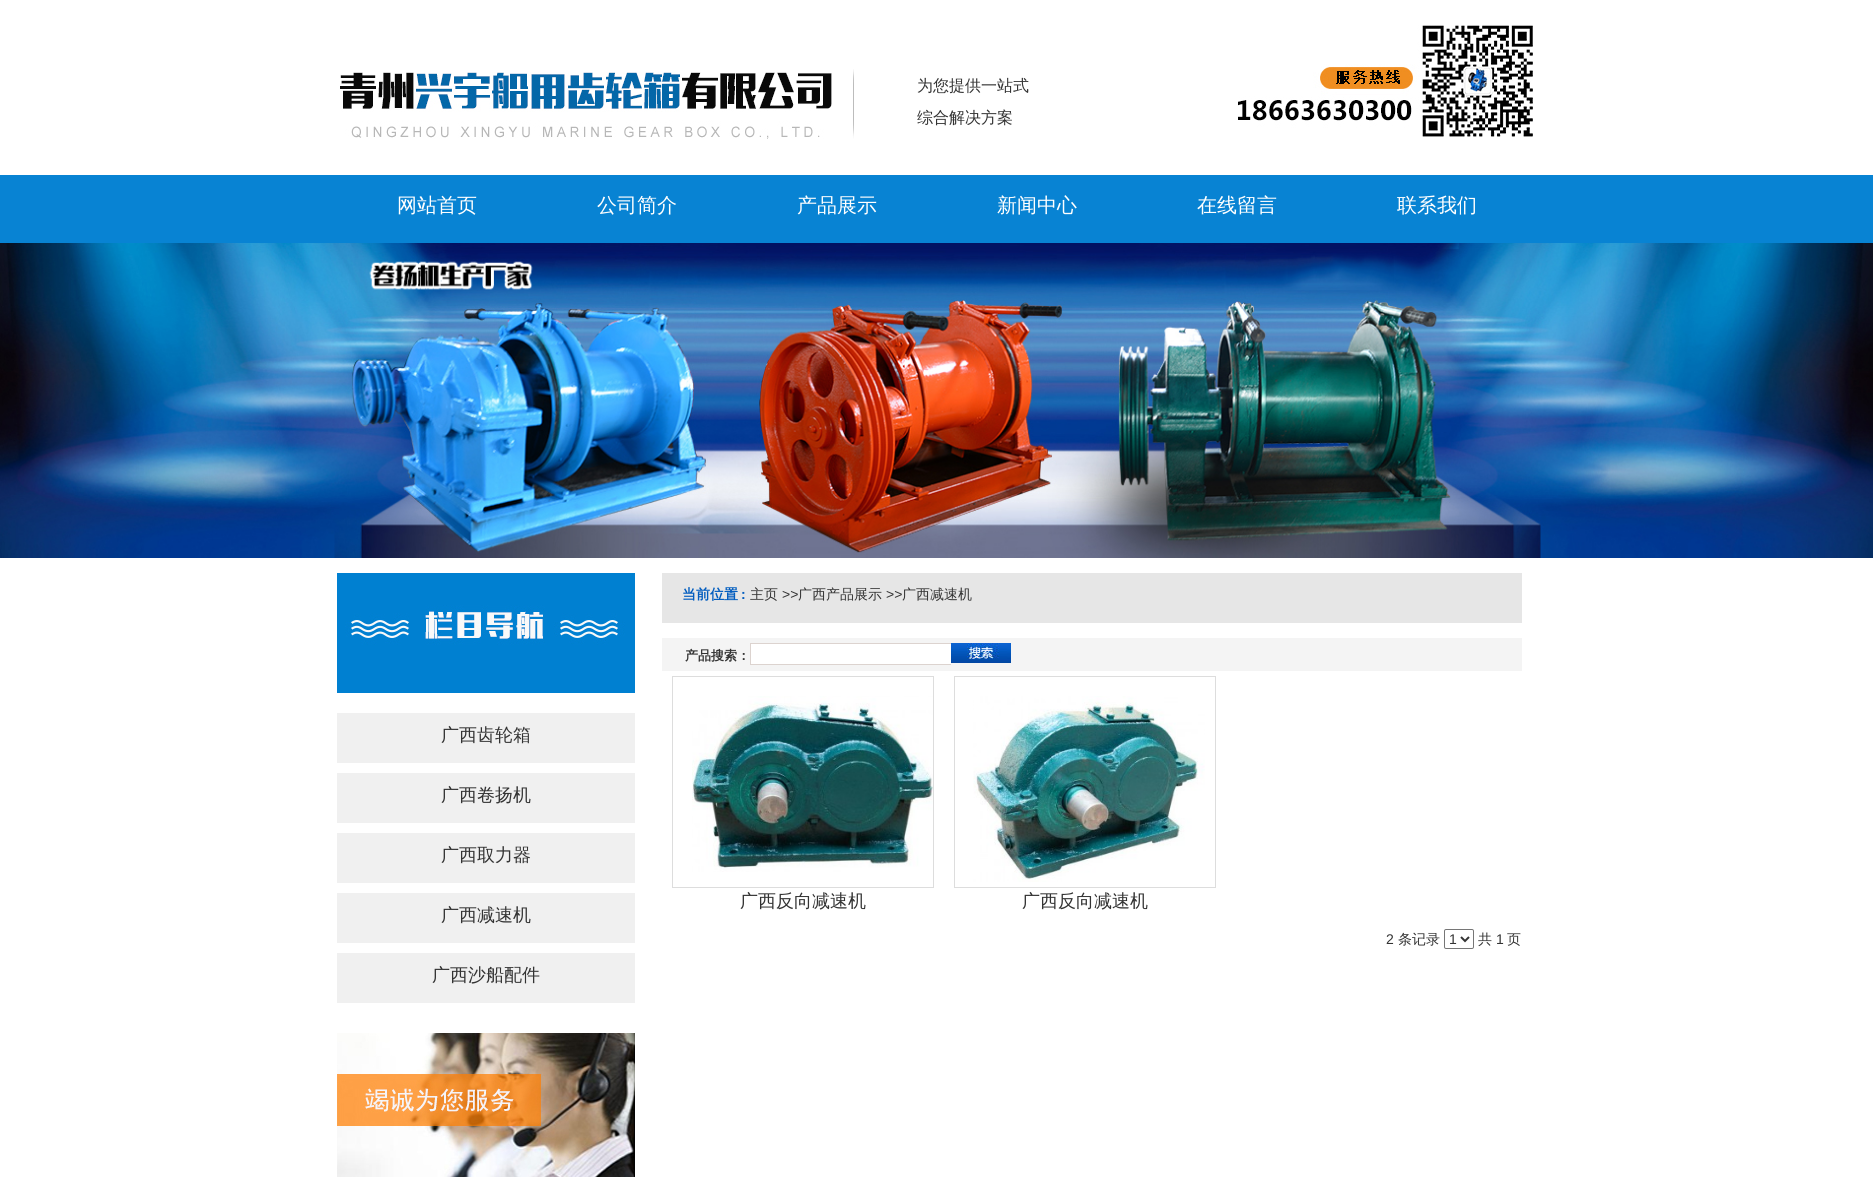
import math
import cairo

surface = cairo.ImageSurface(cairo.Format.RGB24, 1873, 1202)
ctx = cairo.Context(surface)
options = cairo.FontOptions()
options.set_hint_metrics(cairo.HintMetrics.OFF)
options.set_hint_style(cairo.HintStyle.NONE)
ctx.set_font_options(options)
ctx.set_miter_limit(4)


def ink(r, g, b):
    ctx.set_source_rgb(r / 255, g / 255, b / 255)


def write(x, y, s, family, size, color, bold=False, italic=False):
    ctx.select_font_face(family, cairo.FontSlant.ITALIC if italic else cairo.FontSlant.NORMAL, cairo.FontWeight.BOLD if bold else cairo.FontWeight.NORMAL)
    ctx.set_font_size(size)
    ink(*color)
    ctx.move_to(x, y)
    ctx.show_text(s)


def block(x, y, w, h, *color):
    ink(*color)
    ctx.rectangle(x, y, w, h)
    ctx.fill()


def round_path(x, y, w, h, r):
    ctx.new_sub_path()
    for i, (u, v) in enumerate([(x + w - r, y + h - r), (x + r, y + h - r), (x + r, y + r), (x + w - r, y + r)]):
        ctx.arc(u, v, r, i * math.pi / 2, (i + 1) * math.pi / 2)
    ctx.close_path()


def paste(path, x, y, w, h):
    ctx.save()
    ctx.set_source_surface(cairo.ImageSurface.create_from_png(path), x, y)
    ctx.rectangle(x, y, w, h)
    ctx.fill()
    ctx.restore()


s1 = dict(family="WenQuanYi Zen Hei Medium", size=16, color=(51, 51, 51))
s2 = dict(family="WenQuanYi Zen Hei Medium", size=20, color=(255, 255, 255))
s3 = dict(family="WenQuanYi Zen Hei Medium", size=18, color=(51, 51, 51))
s4 = dict(family="WenQuanYi Zen Hei", size=14, color=(2, 93, 191), bold=True)
s5 = dict(family="Liberation Sans", size=14, color=(2, 93, 191), bold=True)
s6 = dict(family="WenQuanYi Zen Hei Medium", size=14, color=(51, 51, 51))
s7 = dict(family="Liberation Sans", size=14, color=(51, 51, 51))
s8 = dict(family="WenQuanYi Zen Hei", size=13, color=(51, 51, 51), bold=True)

ink(255, 255, 255)
ctx.paint()
paste("pic1.png", 340, 69, 514, 70)
write(917, 91, "为您提供一站式", **s1)
write(917, 123, "综合解决方案", **s1)
paste("pic2.png", 1238, 25, 295, 112)
block(0, 175, 1873, 68, 8, 131, 211)
write(397, 212, "网站首页", **s2)
write(597, 212, "公司简介", **s2)
write(797, 212, "产品展示", **s2)
write(997, 212, "新闻中心", **s2)
write(1197, 212, "在线留言", **s2)
write(1397, 212, "联系我们", **s2)
paste("pic3.png", 0, 243, 1873, 315)
paste("pic4.png", 337, 573, 298, 120)
block(337, 713, 298, 50, 240, 240, 240)
write(441, 741, "广西齿轮箱", **s3)
block(337, 773, 298, 50, 240, 240, 240)
write(441, 801, "广西卷扬机", **s3)
block(337, 833, 298, 50, 240, 240, 240)
write(441, 861, "广西取力器", **s3)
block(337, 893, 298, 50, 240, 240, 240)
write(441, 921, "广西减速机", **s3)
block(337, 953, 298, 50, 240, 240, 240)
write(432, 981, "广西沙船配件", **s3)
paste("pic5.png", 337, 1033, 298, 144)
block(662, 573, 860, 50, 230, 230, 230)
write(682, 599, "当前位置", **s4)
write(741, 599, ":", **s5)
write(750, 599, "主页", **s6)
write(782, 599, ">>", **s7)
write(798, 599, "广西产品展示", **s6)
write(886, 599, ">>", **s7)
write(902, 599, "广西减速机", **s6)
block(662, 638, 860, 33, 244, 244, 244)
write(685, 660, "产品搜索：", **s8)
block(751, 644, 200, 20, 255, 255, 255)
block(750, 643, 201, 1, 220, 211, 207)
block(750, 664, 201, 1, 220, 211, 207)
block(750, 643, 1, 22, 220, 211, 207)
paste("pic6.png", 951, 643, 60, 20)
ctx.rectangle(672.5, 676.5, 261, 211)
ink(221, 221, 221)
ctx.set_line_width(1)
ctx.stroke()
paste("pic7.png", 692, 696, 241, 176)
write(740, 907, "广西反向减速机", **s3)
ctx.rectangle(954.5, 676.5, 261, 211)
ink(221, 221, 221)
ctx.stroke()
paste("pic8.png", 973, 696, 232, 186)
write(1022, 907, "广西反向减速机", **s3)
write(1386, 944, "2", **s7)
write(1398, 944, "条记录", **s6)
round_path(1444.5, 929.5, 29, 19, 1.5)
ink(118, 118, 118)
ctx.stroke()
ctx.new_path()
ctx.move_to(1461, 937)
ctx.line_to(1465, 941)
ctx.line_to(1469, 937)
ink(51, 51, 51)
ctx.set_line_width(2)
ctx.stroke()
write(1449, 944, "1", **s7)
write(1478, 944, "共", **s6)
write(1496, 944, "1", **s7)
write(1507, 944, "页", **s6)
surface.write_to_png("screenshot.png")
